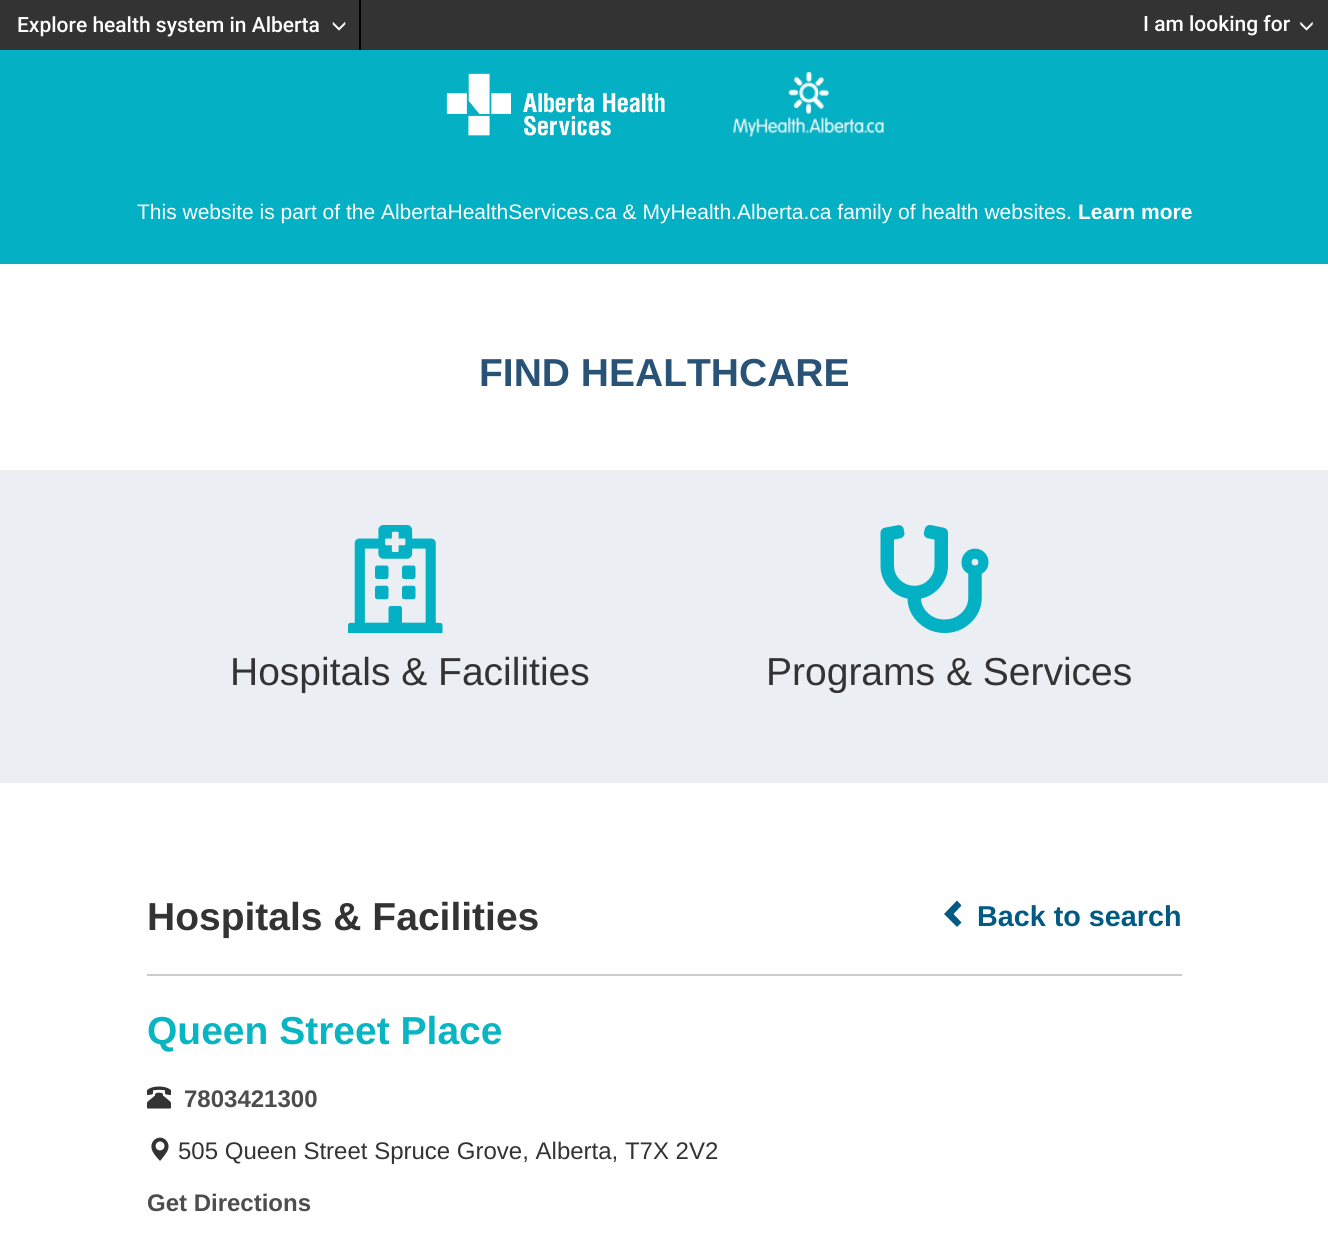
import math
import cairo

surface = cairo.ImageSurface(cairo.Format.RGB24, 1328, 1248)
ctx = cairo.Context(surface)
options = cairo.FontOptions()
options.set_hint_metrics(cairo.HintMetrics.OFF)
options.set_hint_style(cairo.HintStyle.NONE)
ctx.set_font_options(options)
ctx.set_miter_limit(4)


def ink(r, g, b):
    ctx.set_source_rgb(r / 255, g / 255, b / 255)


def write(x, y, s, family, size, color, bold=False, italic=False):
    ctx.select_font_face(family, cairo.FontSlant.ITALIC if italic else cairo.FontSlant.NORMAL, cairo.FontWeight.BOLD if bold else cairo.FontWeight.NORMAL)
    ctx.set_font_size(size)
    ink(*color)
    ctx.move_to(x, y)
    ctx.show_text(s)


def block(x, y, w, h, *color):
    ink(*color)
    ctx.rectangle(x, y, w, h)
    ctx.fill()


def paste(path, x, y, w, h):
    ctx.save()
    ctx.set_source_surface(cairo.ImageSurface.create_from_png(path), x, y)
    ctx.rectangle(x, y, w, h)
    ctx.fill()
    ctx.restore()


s1 = dict(family="Roboto Medium", size=21, color=(255, 255, 255))
s2 = dict(family="Liberation Sans", size=21, color=(255, 255, 255))
s3 = dict(family="Liberation Sans", size=21, color=(255, 255, 255), bold=True)
s4 = dict(family="Liberation Sans", size=39, color=(41, 83, 118), bold=True)
s5 = dict(family="Liberation Sans", size=39, color=(51, 51, 51))
s6 = dict(family="Liberation Sans", size=39, color=(51, 51, 51), bold=True)
s7 = dict(family="Liberation Sans", size=28.75, color=(0, 90, 131), bold=True)
s8 = dict(family="Liberation Sans", size=39, color=(7, 181, 195), bold=True)
s9 = dict(family="Liberation Sans", size=24, color=(77, 77, 77), bold=True)
s10 = dict(family="Liberation Sans", size=24, color=(51, 51, 51))

ink(255, 255, 255)
ctx.paint()
block(0, 0, 1328, 50, 51, 51, 51)
block(359, 0, 2, 50, 0, 0, 0)
write(17, 32, "Explore health system in Alberta", **s1)
paste("pic1.png", 332, 22, 14, 9)
write(1143, 31, "I am looking for", **s1)
paste("pic2.png", 1300, 22, 13, 9)
block(0, 50, 1328, 214, 4, 176, 196)
paste("pic3.png", 446, 73, 219, 63)
paste("pic4.png", 733, 72, 151, 65)
write(137, 219, "This website is part of the AlbertaHealthServices.ca & MyHealth.Alberta.ca family of health websites.", **s2)
write(1078, 219, "Learn more", **s3)
write(479, 386, "FIND HEALTHCARE", **s4)
block(0, 470, 1328, 313, 235, 239, 243)
paste("pic5.png", 348, 525, 95, 108)
write(230, 685, "Hospitals & Facilities", **s5)
paste("pic6.png", 880, 525, 109, 108)
write(766, 685, "Programs & Services", **s5)
write(147, 930, "Hospitals & Facilities", **s6)
ink(0, 90, 131)
ctx.new_path()
ctx.move_to(961.5, 905.5)
ctx.line_to(953.5, 914)
ctx.line_to(961.5, 922.5)
ctx.line_to(957, 927)
ctx.line_to(944, 914)
ctx.line_to(957, 900.5)
ctx.close_path()
ctx.fill()
write(977, 926, "Back to search", **s7)
block(147, 974, 1035, 2, 204, 204, 204)
write(147, 1044, "Queen Street Place", **s8)
paste("pic7.png", 147, 1086, 24, 23)
write(184, 1107, "7803421300", **s9)
paste("pic8.png", 151, 1137, 18, 24)
write(178, 1159, "505 Queen Street Spruce Grove, Alberta, T7X 2V2", **s10)
write(147, 1211, "Get Directions", **s9)
surface.write_to_png("screenshot.png")
